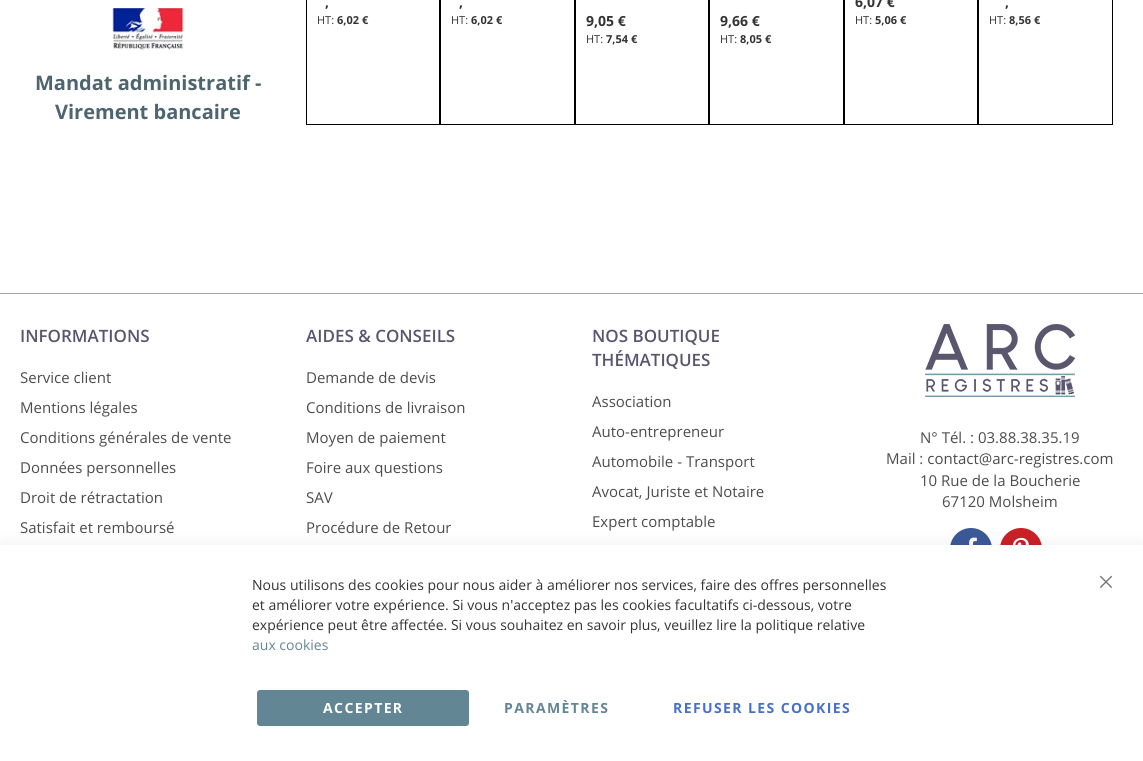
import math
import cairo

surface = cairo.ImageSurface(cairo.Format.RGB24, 1143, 761)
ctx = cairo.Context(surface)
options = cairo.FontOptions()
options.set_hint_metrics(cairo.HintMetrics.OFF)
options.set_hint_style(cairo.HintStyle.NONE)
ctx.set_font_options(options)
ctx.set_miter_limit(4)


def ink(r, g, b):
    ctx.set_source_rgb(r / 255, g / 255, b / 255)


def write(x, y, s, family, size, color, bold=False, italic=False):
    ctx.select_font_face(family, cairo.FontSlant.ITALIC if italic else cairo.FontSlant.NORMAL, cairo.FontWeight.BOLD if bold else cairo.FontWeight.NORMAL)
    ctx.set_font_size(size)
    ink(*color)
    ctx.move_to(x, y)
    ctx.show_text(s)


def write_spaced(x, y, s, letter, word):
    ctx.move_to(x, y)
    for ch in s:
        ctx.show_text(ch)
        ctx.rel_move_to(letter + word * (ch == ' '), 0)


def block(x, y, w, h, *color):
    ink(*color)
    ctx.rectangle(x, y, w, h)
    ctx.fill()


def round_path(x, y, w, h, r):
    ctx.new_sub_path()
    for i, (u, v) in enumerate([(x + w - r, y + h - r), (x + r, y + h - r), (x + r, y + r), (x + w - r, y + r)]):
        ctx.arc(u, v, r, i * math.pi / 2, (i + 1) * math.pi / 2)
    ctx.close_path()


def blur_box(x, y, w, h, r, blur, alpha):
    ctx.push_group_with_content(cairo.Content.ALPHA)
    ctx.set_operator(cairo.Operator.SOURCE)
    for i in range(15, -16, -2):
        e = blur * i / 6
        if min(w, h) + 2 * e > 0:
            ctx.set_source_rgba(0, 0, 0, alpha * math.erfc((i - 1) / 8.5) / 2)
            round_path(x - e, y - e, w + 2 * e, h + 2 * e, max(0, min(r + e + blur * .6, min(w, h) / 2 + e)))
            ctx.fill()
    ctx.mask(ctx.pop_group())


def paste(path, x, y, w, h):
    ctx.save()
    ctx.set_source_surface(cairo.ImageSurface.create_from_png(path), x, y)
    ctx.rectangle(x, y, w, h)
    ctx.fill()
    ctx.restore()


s1 = dict(family="Open Sans", size=14, color=(51, 51, 51), bold=True)
s2 = dict(family="Open Sans", size=11, color=(51, 51, 51))
s3 = dict(family="Open Sans", size=11, color=(51, 51, 51), bold=True)
s4 = dict(family="Open Sans", size=20, color=(78, 101, 111), bold=True)
s5 = dict(family="Open Sans SemiBold", size=17, color=(90, 85, 110))
s6 = dict(family="Open Sans", size=15, color=(76, 76, 76))
s7 = dict(family="Open Sans", size=14, color=(51, 51, 51))
s8 = dict(family="Open Sans", size=14, color=(99, 134, 148))

ink(255, 255, 255)
ctx.paint()
ctx.rectangle(306.5, -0.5, 133, 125)
ink(0, 0, 0)
ctx.set_line_width(1)
ctx.stroke()
write(325, 7, ",", **s1)
write(317, 24, "HT:", **s2)
write(337, 24, "6,02 €", **s3)
ctx.rectangle(440.5, -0.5, 134, 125)
ink(0, 0, 0)
ctx.stroke()
write(459, 7, ",", **s1)
write(451, 24, "HT:", **s2)
write(471, 24, "6,02 €", **s3)
ctx.rectangle(575.5, -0.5, 133, 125)
ink(0, 0, 0)
ctx.stroke()
write(586, 26, "9,05 €", **s1)
write(586, 43, "HT:", **s2)
write(606, 43, "7,54 €", **s3)
ctx.rectangle(709.5, -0.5, 134, 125)
ink(0, 0, 0)
ctx.stroke()
write(720, 26, "9,66 €", **s1)
write(720, 43, "HT:", **s2)
write(740, 43, "8,05 €", **s3)
ctx.rectangle(844.5, -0.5, 133, 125)
ink(0, 0, 0)
ctx.stroke()
write(855, 7, "6,07 €", **s1)
write(855, 24, "HT:", **s2)
write(875, 24, "5,06 €", **s3)
ctx.rectangle(978.5, -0.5, 134, 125)
ink(0, 0, 0)
ctx.stroke()
write(1005, 7, ",", **s1)
write(989, 24, "HT:", **s2)
write(1009, 24, "8,56 €", **s3)
paste("pic1.png", 112, 8, 72, 42)
write(35, 90, "Mandat administratif -", **s4)
write(55, 119, "Virement bancaire", **s4)
block(0, 293, 1143, 1, 167, 167, 167)
write(20, 342, "INFORMATIONS", **s5)
write(20, 383, "Service client", **s6)
write(20, 413, "Mentions légales", **s6)
write(20, 443, "Conditions générales de vente", **s6)
write(20, 473, "Données personnelles", **s6)
write(20, 503, "Droit de rétractation", **s6)
write(20, 533, "Satisfait et remboursé", **s6)
write(306, 342, "AIDES & CONSEILS", **s5)
write(306, 383, "Demande de devis", **s6)
write(306, 413, "Conditions de livraison", **s6)
write(306, 443, "Moyen de paiement", **s6)
write(306, 473, "Foire aux questions", **s6)
write(306, 503, "SAV", **s6)
write(306, 533, "Procédure de Retour", **s6)
write(592, 342, "NOS BOUTIQUE", **s5)
write(592, 366, "THÉMATIQUES", **s5)
write(592, 407, "Association", **s6)
write(592, 437, "Auto-entrepreneur", **s6)
write(592, 467, "Automobile - Transport", **s6)
write(592, 497, "Avocat, Juriste et Notaire", **s6)
write(592, 527, "Expert comptable", **s6)
paste("pic2.png", 925, 324, 150, 73)
write(920, 443, "N° Tél. : 03.88.38.35.19", **s6)
write(886, 464, "Mail : contact@arc-registres.com", **s6)
write(920, 486, "10 Rue de la Boucherie", **s6)
write(942, 507, "67120 Molsheim", **s6)
ink(59, 89, 152)
ctx.new_path()
ctx.arc(971, 549, 21, 0, 2 * math.pi)
ctx.fill()
paste("pic3.png", 969, 537, 8, 8)
ink(203, 32, 39)
ctx.arc(1021, 549, 21, 0, 2 * math.pi)
ctx.fill()
paste("pic4.png", 1013, 537, 16, 8)
ink(0, 0, 0)
blur_box(0, 543, 1143, 216, 0, 9, 0.06)
block(0, 545, 1143, 216, 255, 255, 255)
write(252, 590, "Nous utilisons des cookies pour nous aider à améliorer nos services, faire des offres personnelles", **s7)
write(252, 610, "et améliorer votre expérience. Si vous n'acceptez pas les cookies facultatifs ci-dessous, votre", **s7)
write(252, 630, "expérience peut être affectée. Si vous souhaitez en savoir plus, veuillez lire la politique relative", **s7)
write(252, 650, "aux cookies", **s8)
round_path(257, 690, 212, 36, 3)
ctx.fill()
ctx.select_font_face("Open Sans", cairo.FontSlant.NORMAL, cairo.FontWeight.BOLD)
ink(255, 255, 255)
write_spaced(323, 713, "ACCEPTER", 1.4, 0)
ink(99, 134, 148)
write_spaced(504, 713, "PARAMÈTRES", 1.4, 0)
ink(70, 112, 201)
write_spaced(673, 713, "REFUSER LES COOKIES", 1.4, 0)
paste("pic5.png", 1099, 575, 14, 13)
surface.write_to_png("screenshot.png")
